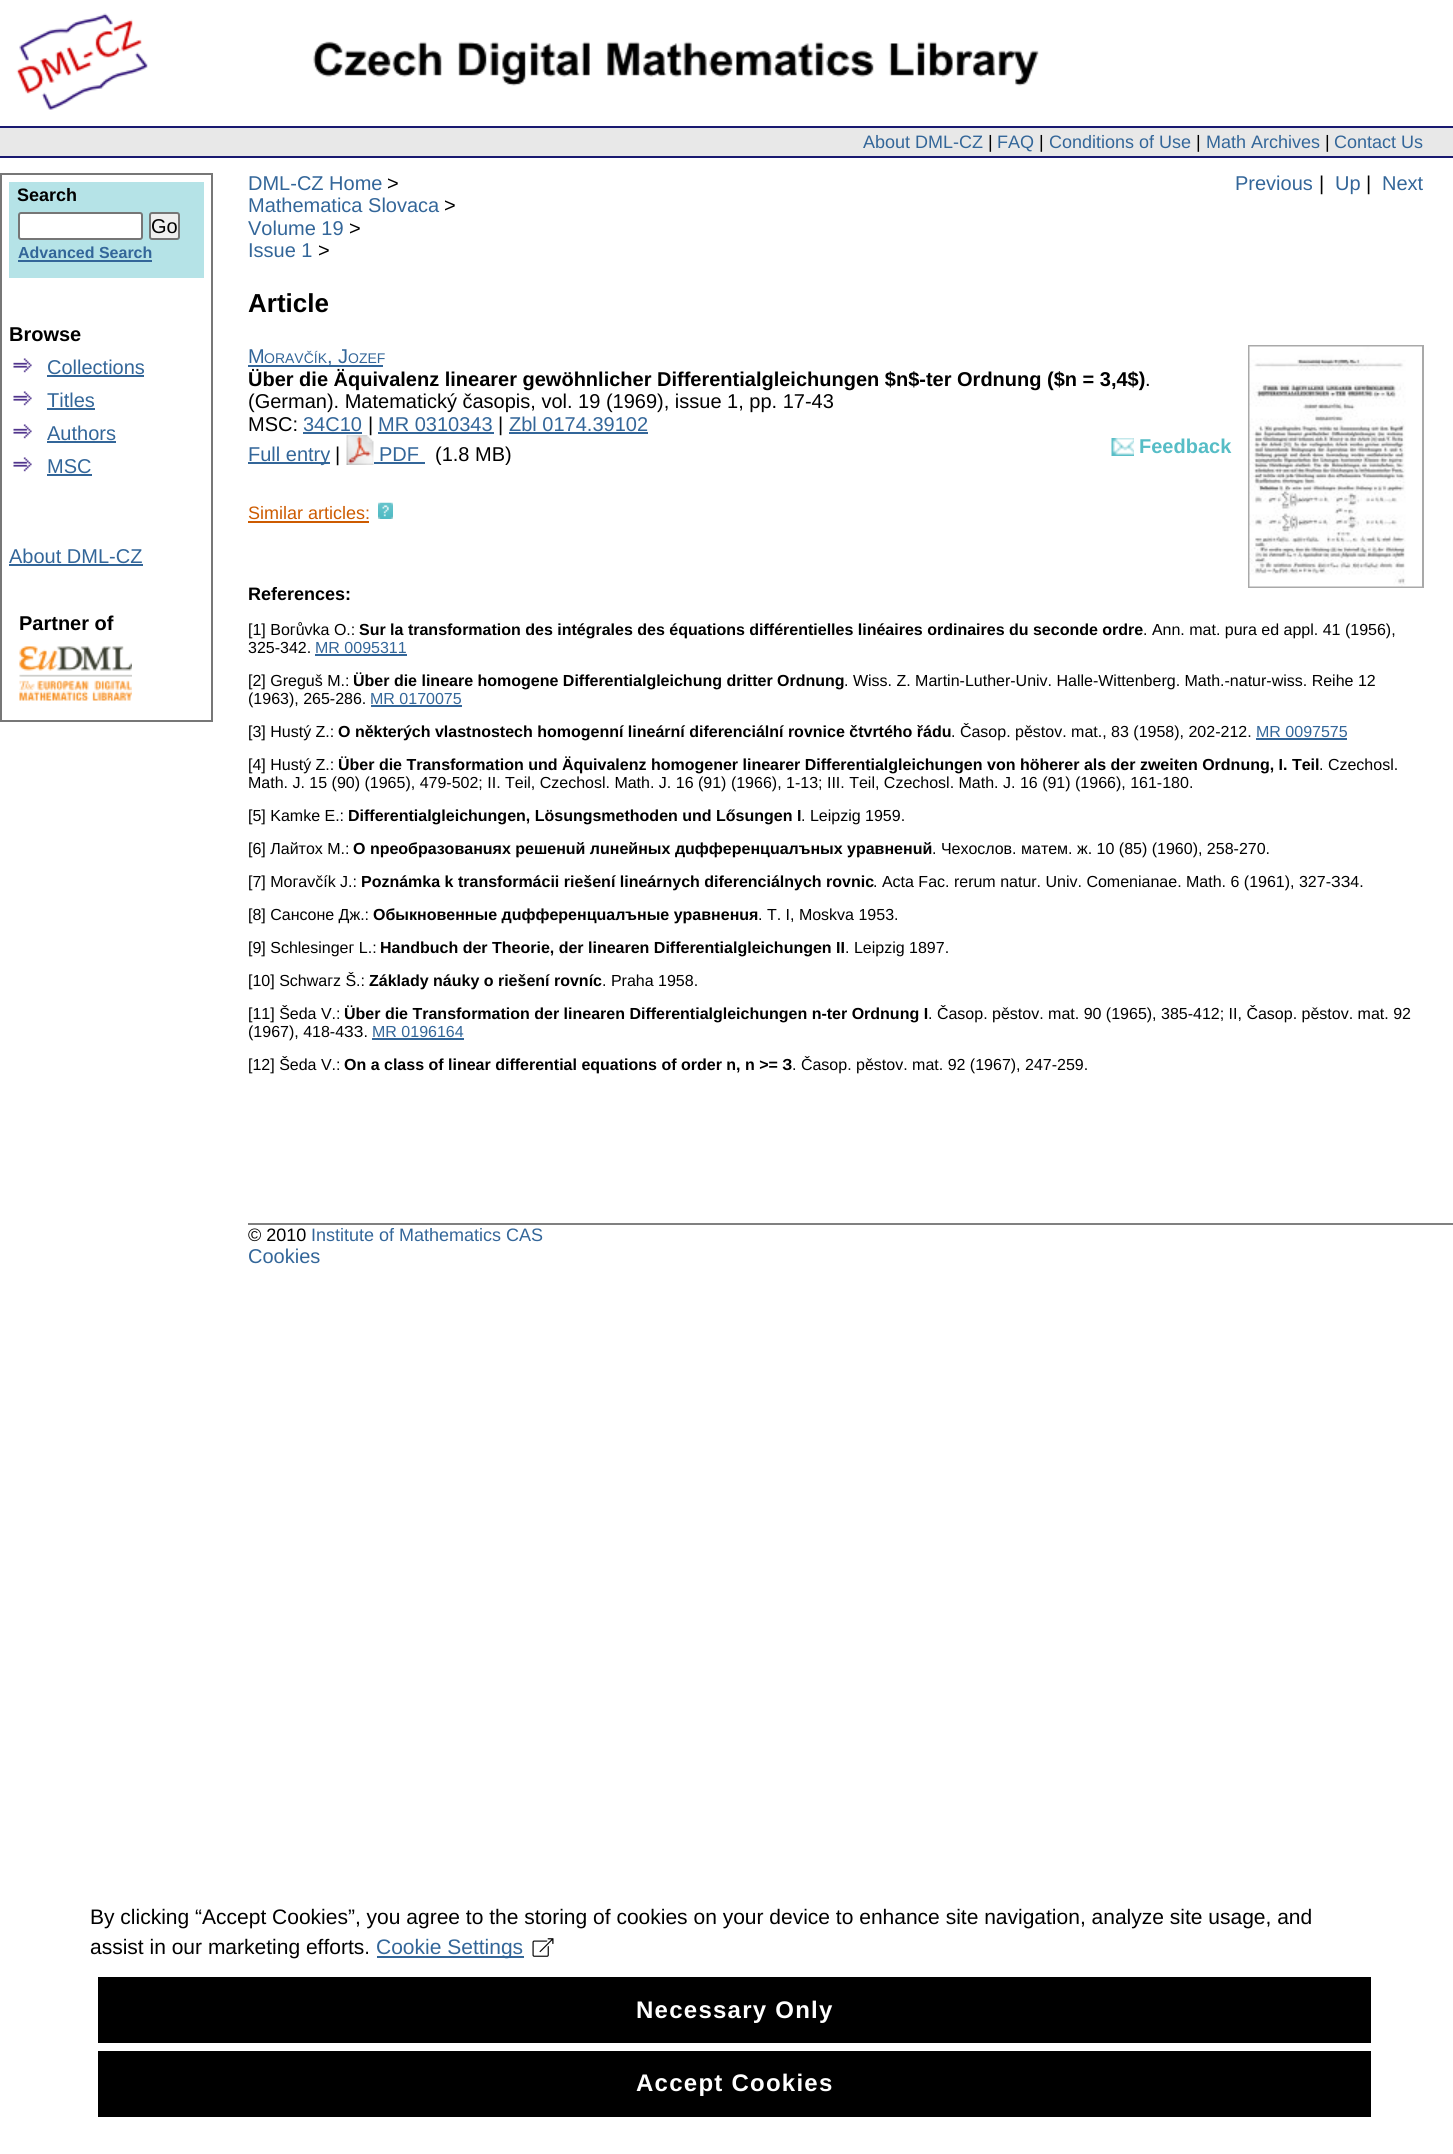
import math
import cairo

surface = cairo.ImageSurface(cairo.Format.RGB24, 1453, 2154)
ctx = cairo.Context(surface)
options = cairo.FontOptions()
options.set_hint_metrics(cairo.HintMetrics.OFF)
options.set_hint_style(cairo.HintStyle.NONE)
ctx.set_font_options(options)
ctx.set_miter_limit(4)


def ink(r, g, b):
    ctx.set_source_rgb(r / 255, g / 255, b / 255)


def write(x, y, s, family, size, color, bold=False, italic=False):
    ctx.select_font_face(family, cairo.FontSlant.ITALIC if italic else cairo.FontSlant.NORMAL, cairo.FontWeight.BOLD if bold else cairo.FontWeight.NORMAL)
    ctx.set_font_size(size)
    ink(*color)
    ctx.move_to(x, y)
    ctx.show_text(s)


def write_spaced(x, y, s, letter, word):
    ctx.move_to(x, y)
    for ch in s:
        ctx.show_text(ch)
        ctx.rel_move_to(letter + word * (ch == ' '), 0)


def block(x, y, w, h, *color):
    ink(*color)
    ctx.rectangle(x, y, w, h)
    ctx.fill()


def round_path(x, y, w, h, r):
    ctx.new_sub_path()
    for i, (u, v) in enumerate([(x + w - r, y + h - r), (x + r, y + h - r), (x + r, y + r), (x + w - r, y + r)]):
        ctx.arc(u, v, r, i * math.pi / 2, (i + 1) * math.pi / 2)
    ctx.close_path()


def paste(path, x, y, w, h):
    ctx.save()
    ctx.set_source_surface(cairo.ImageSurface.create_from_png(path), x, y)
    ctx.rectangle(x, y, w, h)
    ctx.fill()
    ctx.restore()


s1 = dict(family="Liberation Sans", size=18, color=(0, 0, 0), bold=True)
s2 = dict(family="Liberation Sans", size=20, color=(0, 0, 0))
s3 = dict(family="Liberation Sans", size=16, color=(51, 102, 153), bold=True)
s4 = dict(family="Liberation Sans", size=20, color=(0, 0, 0), bold=True)
s5 = dict(family="Liberation Sans", size=20, color=(51, 102, 153))
s6 = dict(family="Liberation Sans", size=18, color=(51, 102, 153))
s7 = dict(family="Liberation Sans", size=18, color=(0, 0, 0))
s8 = dict(family="Liberation Sans", size=26, color=(0, 0, 0), bold=True)
s9 = dict(family="Liberation Sans", size=14, color=(51, 102, 153))
s10 = dict(family="Liberation Sans", size=20, color=(86, 189, 198), bold=True)
s11 = dict(family="Liberation Sans", size=18, color=(205, 91, 0))
s12 = dict(family="Liberation Sans", size=16, color=(0, 0, 0))
s13 = dict(family="Liberation Sans", size=16, color=(0, 0, 0), bold=True)
s14 = dict(family="Liberation Sans", size=16, color=(51, 102, 153))
s15 = dict(family="Liberation Sans", size=21, color=(0, 0, 0))
s16 = dict(family="Liberation Sans", size=21, color=(51, 102, 153))

ink(255, 255, 255)
ctx.paint()
ctx.rectangle(1, 174, 211, 547)
ink(119, 119, 119)
ctx.stroke()
block(9, 182, 195, 96, 181, 227, 231)
write(17, 201, "Search", **s1)
ink(255, 255, 255)
round_path(19, 213, 123, 26, 2)
ctx.fill_preserve()
ink(118, 118, 118)
ctx.stroke()
ink(239, 239, 239)
round_path(150, 213, 29, 26, 2)
ctx.fill_preserve()
ink(118, 118, 118)
ctx.stroke()
write(151, 233, "Go", **s2)
write(18, 258, "Advanced Search", **s3)
block(18, 260, 134, 2, 51, 102, 153)
write(9, 341, "Browse", **s4)
paste("pic1.png", 13, 358, 19, 15)
write(47, 374, "Collections", **s5)
block(47, 375, 97, 2, 51, 102, 153)
paste("pic1.png", 13, 391, 19, 15)
write(47, 407, "Titles", **s5)
block(47, 408, 48, 2, 51, 102, 153)
paste("pic1.png", 13, 424, 19, 15)
write(47, 440, "Authors", **s5)
block(47, 441, 69, 2, 51, 102, 153)
paste("pic1.png", 13, 457, 19, 15)
write(47, 473, "MSC", **s5)
block(47, 474, 45, 2, 51, 102, 153)
write(9, 563, "About DML-CZ", **s5)
block(9, 564, 134, 2, 51, 102, 153)
write(19, 630, "Partner of", **s4)
paste("pic2.png", 19, 646, 113, 55)
paste("pic3.png", 16, 13, 132, 97)
paste("pic4.png", 313, 41, 726, 45)
block(0, 128, 1453, 28, 232, 232, 232)
block(0, 126, 1453, 2, 25, 25, 112)
block(0, 156, 1453, 2, 25, 25, 112)
write(863, 148, "About DML-CZ", **s6)
write(988, 148, "|", **s7)
write(997, 148, "FAQ", **s6)
write(1039, 148, "|", **s7)
write(1049, 148, "Conditions of Use", **s6)
write(1196, 148, "|", **s7)
write(1206, 148, "Math Archives", **s6)
write(1325, 148, "|", **s7)
write(1334, 148, "Contact Us", **s6)
write(248, 190, "DML-CZ Home", **s5)
write(387, 190, ">", **s2)
write(248, 212, "Mathematica Slovaca", **s5)
write(444, 212, ">", **s2)
write(248, 235, "Volume 19", **s5)
write(349, 235, ">", **s2)
write(248, 257, "Issue 1", **s5)
write(318, 257, ">", **s2)
write(1235, 190, "Previous", **s5)
write(1319, 190, "|", **s2)
write(1335, 190, "Up", **s5)
write(1366, 190, "|", **s2)
write(1382, 190, "Next", **s5)
write(248, 312, "Article", **s8)
write(248, 363, "M", **s5)
write(264, 363, "ORAVČÍK", **s9)
block(248, 365, 135, 2, 51, 102, 153)
write(327, 363, ", J", **s5)
write(348, 363, "OZEF", **s9)
write(248, 386, "Über die Äquivalenz linearer gewöhnlicher Differentialgleichungen $n$-ter Ordnung ($n = 3,4$)", **s4)
write(1145, 386, ".", **s2)
write(248, 408, "(German). Matematický časopis, vol. 19 (1969), issue 1, pp. 17-43", **s2)
ctx.rectangle(1249, 346, 174, 241)
ink(169, 169, 169)
ctx.stroke()
paste("pic5.png", 1249, 346, 173, 241)
write(248, 431, "MSC:", **s2)
write(303, 431, "34C10", **s5)
block(303, 432, 59, 2, 51, 102, 153)
write(368, 431, "|", **s2)
write(378, 431, "MR 0310343", **s5)
block(378, 432, 116, 2, 51, 102, 153)
write(498, 431, "|", **s2)
write(509, 431, "Zbl 0174.39102", **s5)
block(509, 432, 139, 2, 51, 102, 153)
block(248, 462, 82, 2, 51, 102, 153)
write(248, 461, "Full entry", **s5)
write(335, 461, "|", **s2)
paste("pic6.png", 346, 435, 28, 30)
write(379, 461, "PDF", **s5)
ctx.save()
ctx.rectangle(248, 435, 993, 30)
ctx.clip()
write(435, 461, "(1.8 MB)", **s2)
ctx.restore()
block(374, 462, 51, 2, 51, 102, 153)
paste("pic7.png", 1111, 438, 23, 18)
write(1139, 453, "Feedback", **s10)
write(248, 519, "Similar articles:", **s11)
block(248, 521, 121, 2, 205, 91, 0)
paste("pic8.png", 378, 502, 15, 17)
write(248, 600, "References:", **s1)
write(248, 635, "[1] Boгůvka O.:", **s12)
write(359, 635, "Sur la transformation des intégrales des équations différentielles linéaires ordinaires du seconde ordre", **s13)
write(1143, 635, ". Ann. mat. pura ed appl. 41 (1956),", **s12)
write(248, 653, "325-342.", **s12)
write(315, 653, "MR 0095311", **s14)
block(315, 654, 92, 2, 51, 102, 153)
write(248, 686, "[2] Greguš M.:", **s12)
write(353, 686, "Über die lineare homogene Differentialgleichung dritter Ordnung", **s13)
write(844, 686, ". Wiss. Z. Martin-Luther-Univ. Halle-Wittenberg. Math.-natur-wiss. Reihe 12", **s12)
write(248, 704, "(1963), 265-286.", **s12)
write(370, 704, "MR 0170075", **s14)
block(371, 705, 91, 2, 51, 102, 153)
write(248, 737, "[3] Hustý Z.:", **s12)
write(338, 737, "O některých vlastnostech homogenní lineární diferenciální rovnice čtvrtého řádu", **s13)
write(951, 737, ". Časop. pěstov. mat., 83 (1958), 202-212.", **s12)
write(1256, 737, "MR 0097575", **s14)
block(1256, 738, 91, 2, 51, 102, 153)
write(248, 770, "[4] Hustý Z.:", **s12)
write(338, 770, "Über die Transformation und Äquivalenz homogener linearer Differentialgleichungen von höherer als der zweiten Ordnung, I. Teil", **s13)
write(1319, 770, ". Czechosl.", **s12)
write(248, 788, "Math. J. 15 (90) (1965), 479-502; II. Teil, Czechosl. Math. J. 16 (91) (1966), 1-13; III. Teil, Czechosl. Math. J. 16 (91) (1966), 161-180.", **s12)
write(248, 821, "[5] Kamke E.:", **s12)
write(348, 821, "Differentialgleichungen, Lösungsmethoden und Lősungen I", **s13)
write(801, 821, ". Leipzig 1959.", **s12)
write(248, 854, "[6] Лaйтox M.:", **s12)
write(353, 854, "O npeoбpaзoвaнuяx peшeнuй лuнeйныx дuффepeнцuaлъныx ypaвнeнuй", **s13)
write(932, 854, ". Чexocлoв. мaтeм. ж. 10 (85) (1960), 258-270.", **s12)
write(248, 887, "[7] Moгavčík J.:", **s12)
write(361, 887, "Poznámka k transformácii riešení lineárnych diferenciálnych rovnic", **s13)
write(873, 887, ". Acta Fac. rerum natur. Univ. Comenianae. Math. 6 (1961), 327-ЗЗ4.", **s12)
write(248, 920, "[8] Caнcoнe Дж.:", **s12)
write(373, 920, "Oбыкнoвeнныe дuффepeнцuaлъныe ypaвнeнuя", **s13)
write(758, 920, ". T. I, Moskva 1953.", **s12)
write(248, 953, "[9] Schlesingeг L.:", **s12)
write(380, 953, "Handbuch der Theorie, der linearen Differentialgleichungen II", **s13)
write(845, 953, ". Leipzig 1897.", **s12)
write(248, 986, "[10] Schwaгz Š.:", **s12)
write(369, 986, "Základy náuky o riešení rovníc", **s13)
write(602, 986, ". Praha 1958.", **s12)
write(248, 1019, "[11] Šeda V.:", **s12)
write(344, 1019, "Über die Transformation der linearen Differentialgleichungen n-ter Ordnung I", **s13)
write(928, 1019, ". Časop. pěstov. mat. 90 (1965), 385-412; II, Časop. pěstov. mat. 92", **s12)
write(248, 1037, "(1967), 418-4ЗЗ.", **s12)
write(372, 1037, "MR 0196164", **s14)
block(372, 1038, 92, 2, 51, 102, 153)
write(248, 1070, "[12] Šeda V.:", **s12)
write(344, 1070, "On a class of linear differential equations of order n, n >= З", **s13)
write(792, 1070, ". Časop. pěstov. mat. 92 (1967), 247-259.", **s12)
block(248, 1223, 1205, 2, 128, 128, 128)
write(248, 1241, "© 2010", **s7)
write(311, 1241, "Institute of Mathematics CAS", **s6)
write(248, 1263, "Cookies", **s5)
write(90, 1924, "By clicking “Accept Cookies”, you agree to the storing of cookies on your device to enhance site navigation, analyze site usage, and", **s15)
write(90, 1954, "assist in our marketing efforts.", **s15)
block(377, 1956, 147, 2, 51, 102, 153)
write(376, 1954, "Cookie Settings", **s16)
paste("pic9.png", 532, 1938, 22, 19)
block(98, 1977, 1273, 66, 0, 0, 0)
ctx.select_font_face("Liberation Sans", cairo.FontSlant.NORMAL, cairo.FontWeight.BOLD)
ctx.set_font_size(24)
ink(255, 255, 255)
write_spaced(636, 2018, "Necessary Only", 1.25, 0)
block(98, 2051, 1273, 66, 0, 0, 0)
ink(255, 255, 255)
write_spaced(636, 2091, "Accept Cookies", 1.25, 0)
surface.write_to_png("screenshot.png")
